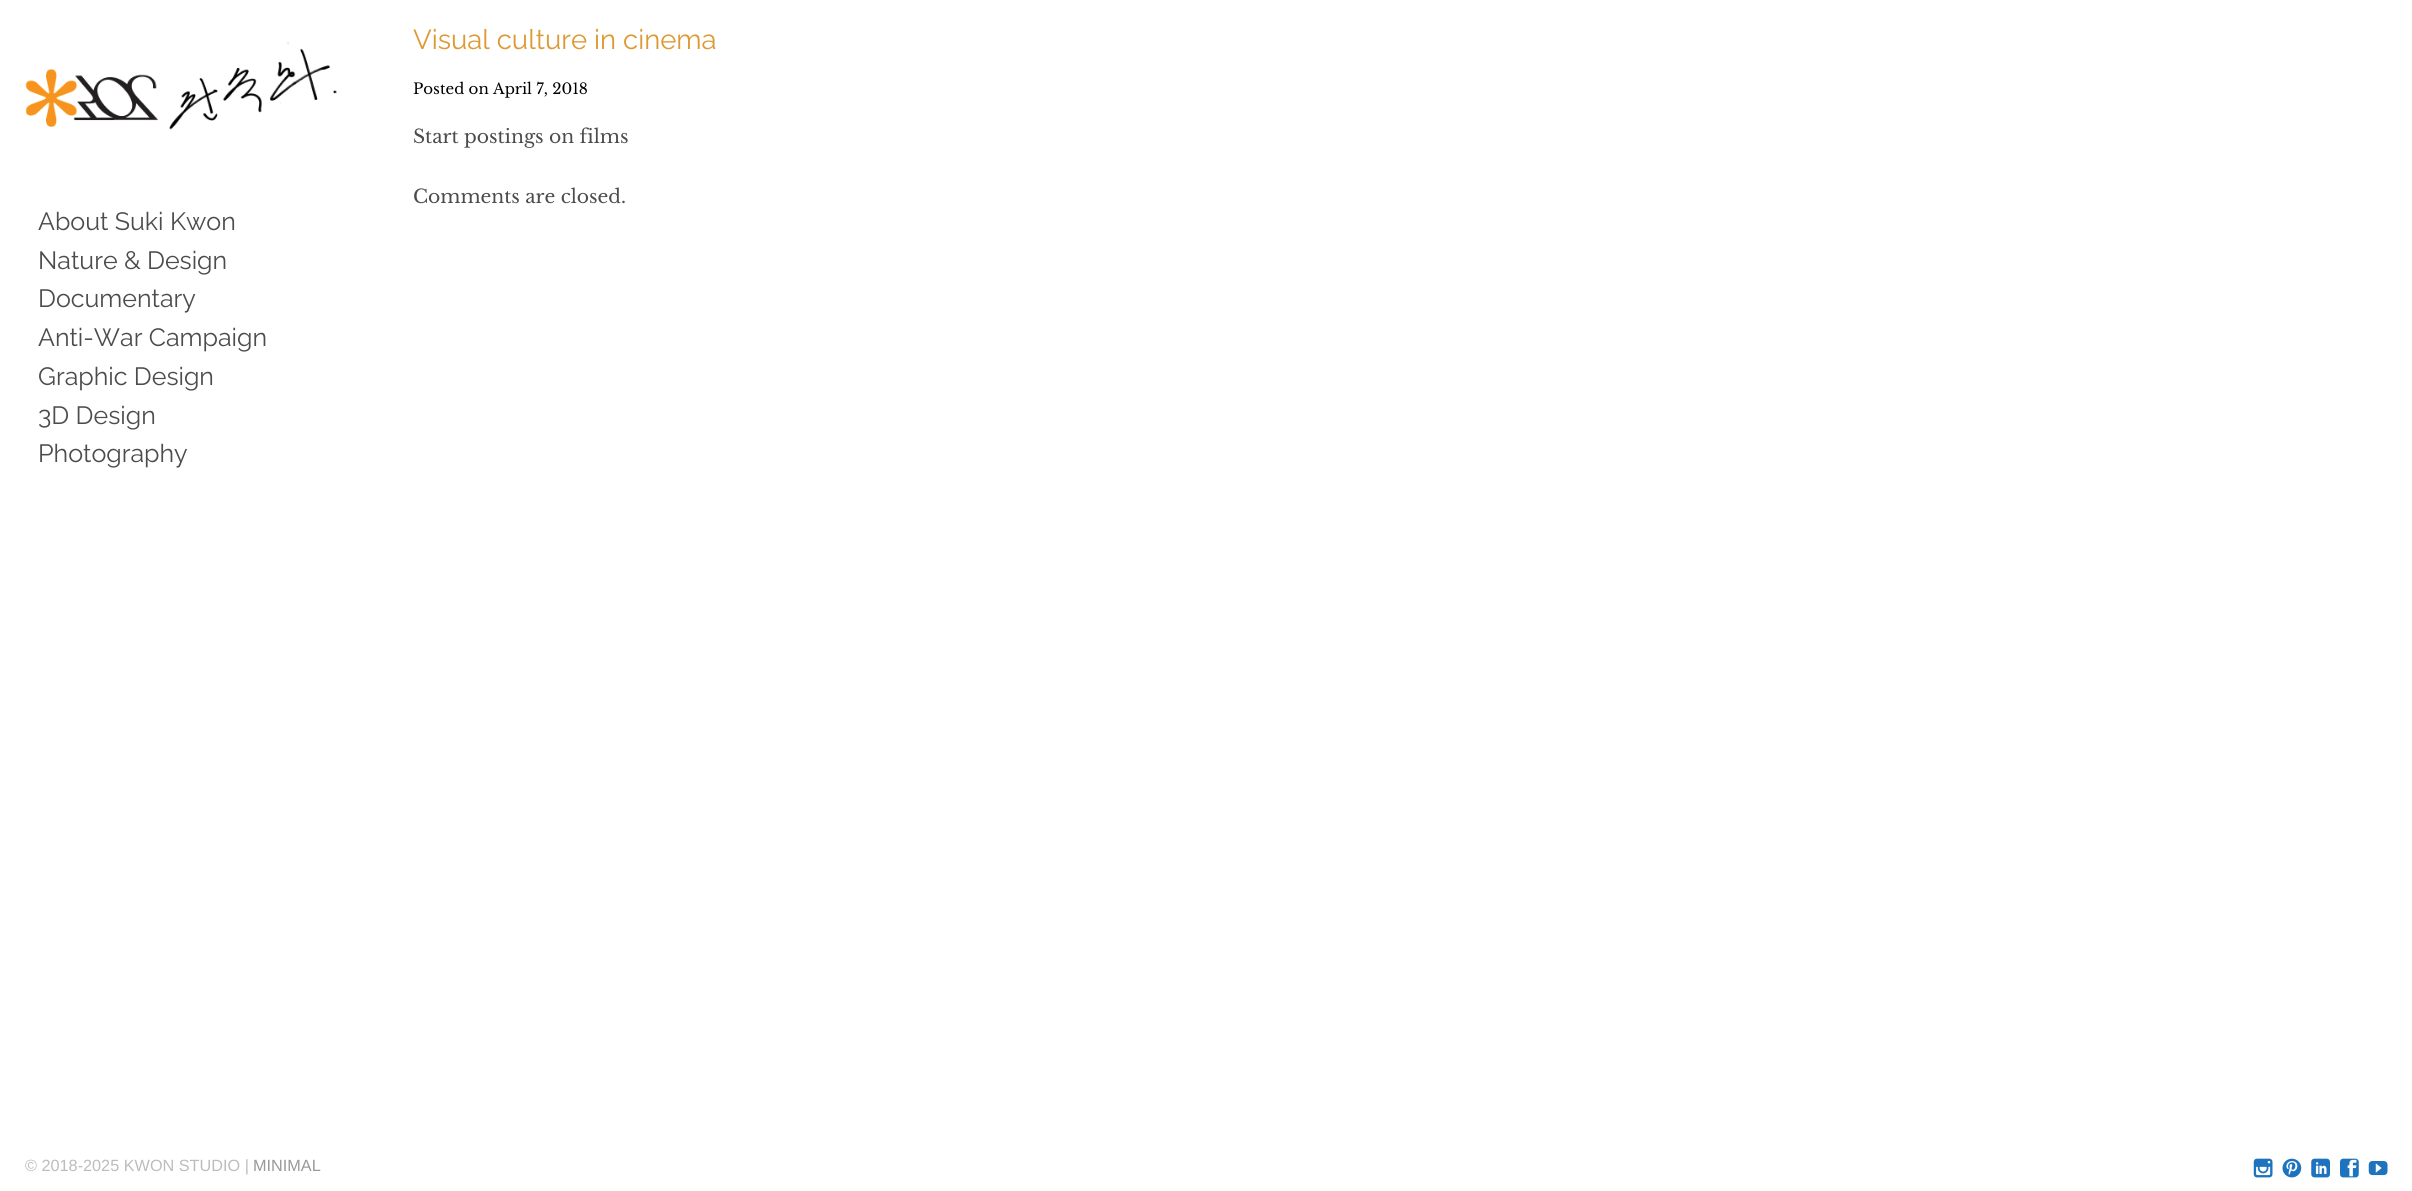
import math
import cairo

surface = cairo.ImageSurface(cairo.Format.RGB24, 2412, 1191)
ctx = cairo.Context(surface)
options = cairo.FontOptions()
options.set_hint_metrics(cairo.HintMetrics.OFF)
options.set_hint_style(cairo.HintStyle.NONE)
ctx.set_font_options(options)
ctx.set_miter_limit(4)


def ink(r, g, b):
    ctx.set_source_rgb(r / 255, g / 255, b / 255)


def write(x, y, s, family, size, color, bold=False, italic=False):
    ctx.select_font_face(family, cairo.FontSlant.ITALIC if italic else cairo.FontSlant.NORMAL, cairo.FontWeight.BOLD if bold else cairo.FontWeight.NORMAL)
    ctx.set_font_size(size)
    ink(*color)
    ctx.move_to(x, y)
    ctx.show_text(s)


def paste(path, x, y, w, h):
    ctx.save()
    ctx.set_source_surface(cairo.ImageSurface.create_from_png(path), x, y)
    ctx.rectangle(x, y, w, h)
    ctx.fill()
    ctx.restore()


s1 = dict(family="Raleway Thin", size=27.5, color=(221, 153, 51))
s2 = dict(family="Libre Baskerville", size=15, color=(0, 0, 0))
s3 = dict(family="Libre Baskerville", size=18.75, color=(76, 76, 76))
s4 = dict(family="Raleway Thin", size=25, color=(76, 76, 76))
s5 = dict(family="Liberation Sans", size=16.25, color=(188, 188, 188))
s6 = dict(family="Liberation Sans", size=16.25, color=(153, 153, 153))

ink(255, 255, 255)
ctx.paint()
write(413, 49, "Visual culture in cinema", **s1)
write(413, 94, "Posted on April 7, 2018", **s2)
write(413, 143, "Start postings on films", **s3)
write(413, 203, "Comments are closed.", **s3)
paste("pic1.png", 25, 42, 312, 88)
write(38, 230, "About Suki Kwon", **s4)
write(38, 269, "Nature & Design", **s4)
write(38, 307, "Documentary", **s4)
write(38, 346, "Anti-War Campaign", **s4)
write(38, 385, "Graphic Design", **s4)
write(38, 424, "3D Design", **s4)
write(38, 462, "Photography", **s4)
write(25, 1171, "© 2018-2025 KWON STUDIO |", **s5)
write(253, 1171, "MINIMAL", **s6)
paste("pic2.png", 2253, 1158, 20, 20)
paste("pic3.png", 2282, 1158, 20, 20)
paste("pic4.png", 2311, 1158, 19, 20)
paste("pic5.png", 2340, 1158, 19, 20)
paste("pic6.png", 2368, 1161, 20, 15)
surface.write_to_png("screenshot.png")
